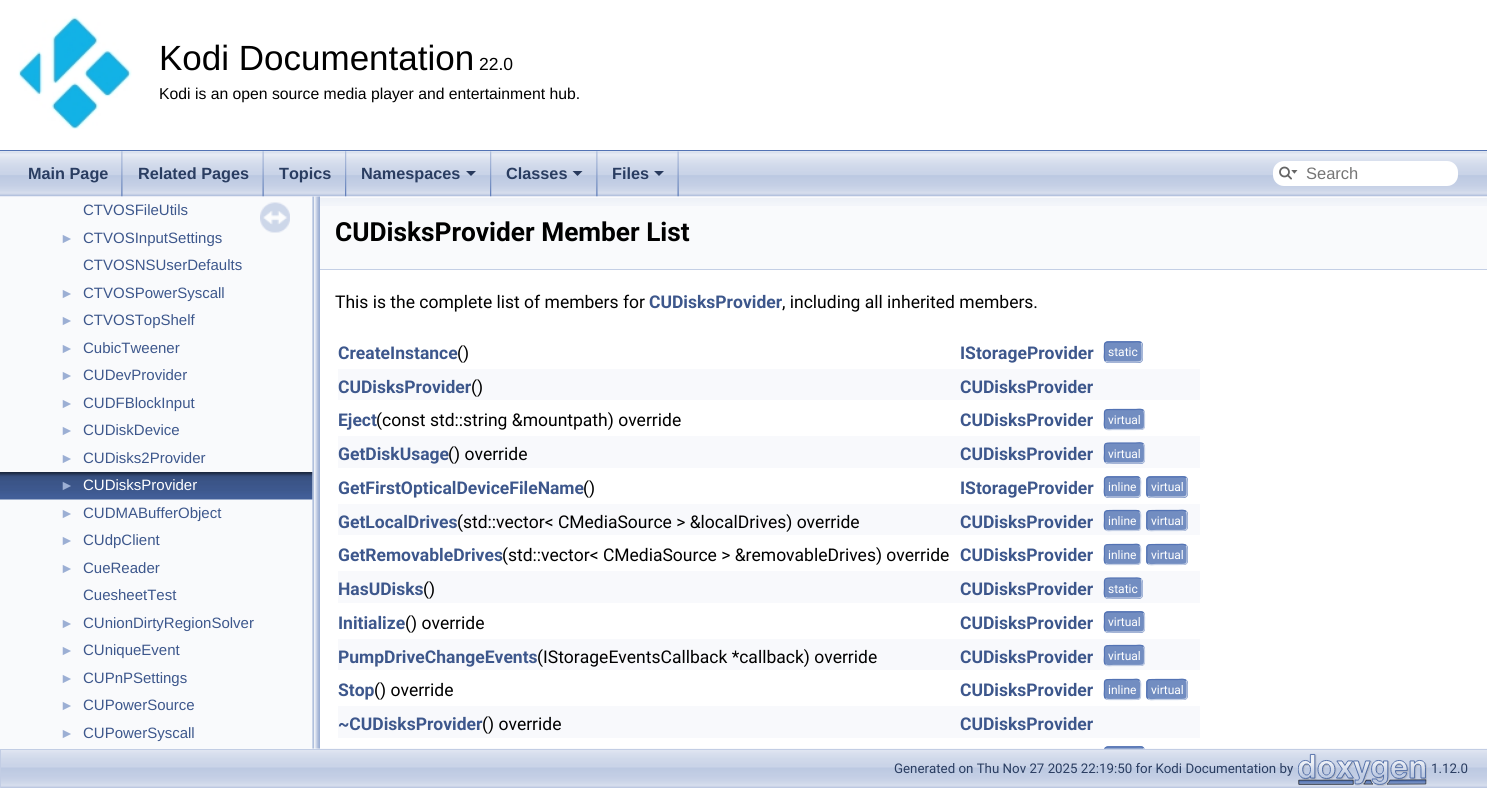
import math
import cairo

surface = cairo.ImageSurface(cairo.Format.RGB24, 1487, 788)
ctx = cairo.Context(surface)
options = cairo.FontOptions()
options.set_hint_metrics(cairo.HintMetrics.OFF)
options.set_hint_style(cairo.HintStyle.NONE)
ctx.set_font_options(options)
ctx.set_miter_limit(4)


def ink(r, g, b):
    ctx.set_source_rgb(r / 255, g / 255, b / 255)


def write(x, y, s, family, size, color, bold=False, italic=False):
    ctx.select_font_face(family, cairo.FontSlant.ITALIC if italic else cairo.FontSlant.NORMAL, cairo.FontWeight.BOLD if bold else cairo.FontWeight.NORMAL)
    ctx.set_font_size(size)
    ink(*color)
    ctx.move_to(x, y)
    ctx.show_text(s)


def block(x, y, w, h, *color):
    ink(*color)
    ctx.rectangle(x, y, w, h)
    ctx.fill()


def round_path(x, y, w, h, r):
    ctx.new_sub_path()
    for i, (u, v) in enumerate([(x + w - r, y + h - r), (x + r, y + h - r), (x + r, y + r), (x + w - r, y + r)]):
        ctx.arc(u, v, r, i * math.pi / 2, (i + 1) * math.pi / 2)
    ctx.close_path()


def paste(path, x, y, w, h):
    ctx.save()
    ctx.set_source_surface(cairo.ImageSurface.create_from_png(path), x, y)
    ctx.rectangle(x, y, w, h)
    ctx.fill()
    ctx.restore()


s1 = dict(family="Liberation Sans", size=35, color=(0, 0, 0))
s2 = dict(family="Liberation Sans", size=17.5, color=(0, 0, 0))
s3 = dict(family="Liberation Sans", size=15.75, color=(0, 0, 0))
s4 = dict(family="Liberation Sans", size=16.25, color=(42, 61, 97), bold=True)
s5 = dict(family="Liberation Sans", size=16.5, color=(117, 117, 117))
s6 = dict(family="Liberation Sans", size=15, color=(61, 87, 140))
s7 = dict(family="Liberation Sans", size=14, color=(156, 175, 212))
s8 = dict(family="Liberation Sans", size=15, color=(255, 255, 255))
s9 = dict(family="Roboto", size=26.25, color=(0, 0, 0), bold=True)
s10 = dict(family="Roboto", size=17.5, color=(0, 0, 0))
s11 = dict(family="Roboto", size=17.5, color=(61, 87, 140), bold=True)
s12 = dict(family="Roboto", size=12, color=(255, 255, 255))
s13 = dict(family="Roboto", size=13.3, color=(42, 61, 97))

ink(255, 255, 255)
ctx.paint()
block(0, 150, 1487, 1, 83, 115, 180)
paste("pic1.png", 18, 16, 114, 113)
write(159, 70, "Kodi Documentation", **s1)
write(479, 70, "22.0", **s2)
write(159, 99, "Kodi is an open source media player and entertainment hub.", **s3)
ink(114, 141, 193)
ctx.new_path()
ctx.move_to(1108, 746)
ctx.line_to(1141, 746)
ctx.curve_to(1143, 746, 1145, 748, 1145, 750)
ctx.line_to(1145, 749)
ctx.line_to(1104, 749)
ctx.line_to(1104, 750)
ctx.curve_to(1104, 748, 1106, 746, 1108, 746)
ctx.close_path()
ctx.fill()
ctx.new_path()
ctx.move_to(1143.5, 748)
ctx.curve_to(1145, 749.5, 1144.5, 755, 1144.5, 757)
ctx.curve_to(1144.5, 767, 1145.5, 767, 1135.5, 767)
ctx.line_to(1113, 767)
ctx.curve_to(1111.5, 767, 1107, 768, 1105.5, 766)
ink(196, 207, 229)
ctx.set_line_width(1.2)
ctx.stroke()
ctx.new_path()
ctx.move_to(1105.5, 766)
ctx.curve_to(1103.5, 764, 1104.5, 759, 1104.5, 757)
ctx.curve_to(1104.5, 747, 1103, 747, 1113, 747)
ctx.line_to(1135.5, 747)
ctx.curve_to(1137, 747, 1141.5, 746, 1143.5, 748)
ink(83, 115, 180)
ctx.stroke()
paste("pic13.png", 1, 748, 1486, 40)
block(0, 196, 313, 553, 249, 250, 252)
paste("pic9.png", 0, 472, 313, 28)
paste("pic11.png", 312, 196, 8, 553)
block(320, 196, 1167, 73, 249, 250, 252)
paste("pic2.png", 0, 151, 1487, 46)
paste("pic3.png", 121, 151, 2, 46)
write(28, 179, "Main Page", **s4)
paste("pic4.png", 262, 151, 2, 46)
write(138, 179, "Related Pages", **s4)
paste("pic5.png", 345, 151, 2, 46)
write(279, 179, "Topics", **s4)
paste("pic6.png", 490, 151, 2, 46)
write(361, 179, "Namespaces", **s4)
ink(40, 58, 93)
ctx.new_path()
ctx.move_to(466, 171)
ctx.line_to(476, 171)
ctx.line_to(471, 176)
ctx.close_path()
ctx.fill()
paste("pic3.png", 596, 151, 2, 46)
write(506, 179, "Classes", **s4)
ink(40, 58, 93)
ctx.new_path()
ctx.move_to(572.5, 171)
ctx.line_to(582.5, 171)
ctx.line_to(577.5, 176)
ctx.close_path()
ctx.fill()
paste("pic7.png", 677, 151, 2, 46)
write(612, 179, "Files", **s4)
ink(40, 58, 93)
ctx.new_path()
ctx.move_to(654, 171)
ctx.line_to(664, 171)
ctx.line_to(659, 176)
ctx.close_path()
ctx.fill()
ink(255, 255, 255)
round_path(1273, 161, 185, 25, 11)
ctx.fill()
paste("pic8.png", 1279, 166, 19, 14)
write(1306, 179, "Search", **s5)
write(83, 215, "CTVOSFileUtils", **s6)
write(60, 243, "►", **s7)
write(83, 243, "CTVOSInputSettings", **s6)
write(83, 270, "CTVOSNSUserDefaults", **s6)
write(60, 298, "►", **s7)
write(83, 298, "CTVOSPowerSyscall", **s6)
write(60, 325, "►", **s7)
write(83, 325, "CTVOSTopShelf", **s6)
write(60, 353, "►", **s7)
write(83, 353, "CubicTweener", **s6)
write(60, 380, "►", **s7)
write(83, 380, "CUDevProvider", **s6)
write(60, 408, "►", **s7)
write(83, 408, "CUDFBlockInput", **s6)
write(60, 435, "►", **s7)
write(83, 435, "CUDiskDevice", **s6)
write(60, 463, "►", **s7)
write(83, 463, "CUDisks2Provider", **s6)
write(60, 490, "►", **s7)
write(83, 490, "CUDisksProvider", **s8)
write(60, 518, "►", **s7)
write(83, 518, "CUDMABufferObject", **s6)
write(60, 545, "►", **s7)
write(83, 545, "CUdpClient", **s6)
write(60, 573, "►", **s7)
write(83, 573, "CueReader", **s6)
write(83, 600, "CuesheetTest", **s6)
write(60, 628, "►", **s7)
write(83, 628, "CUnionDirtyRegionSolver", **s6)
write(60, 655, "►", **s7)
write(83, 655, "CUniqueEvent", **s6)
write(60, 683, "►", **s7)
write(83, 683, "CUPnPSettings", **s6)
write(60, 710, "►", **s7)
write(83, 710, "CUPowerSource", **s6)
write(60, 738, "►", **s7)
write(83, 738, "CUPowerSyscall", **s6)
paste("pic10.png", 260, 202, 30, 31)
paste("pic12.png", 320, 198, 1167, 8)
block(320, 269, 1167, 1, 196, 207, 229)
write(335, 241, "CUDisksProvider Member List", **s9)
write(335, 308, "This is the complete list of members for", **s10)
write(649, 308, "CUDisksProvider", **s11)
write(782, 308, ", including all inherited members.", **s10)
write(338, 359, "CreateInstance", **s11)
write(457, 359, "()", **s10)
write(960, 359, "IStorageProvider", **s11)
ink(114, 141, 193)
round_path(1104, 341, 39, 22, 4)
ctx.fill()
ctx.new_path()
ctx.move_to(1141, 343)
ctx.curve_to(1142.5, 344.5, 1142, 350, 1142, 352)
ctx.curve_to(1142, 361.5, 1143.5, 362, 1133.5, 362)
ctx.line_to(1112.5, 362)
ctx.curve_to(1111, 362, 1107, 362.5, 1105.5, 361)
ink(196, 207, 229)
ctx.stroke()
ctx.new_path()
ctx.move_to(1105.5, 361)
ctx.curve_to(1103.5, 359, 1104.5, 354, 1104.5, 352)
ctx.curve_to(1104.5, 342, 1103, 342, 1112.5, 342)
ctx.line_to(1133.5, 342)
ctx.curve_to(1135, 342, 1139, 341, 1141, 343)
ink(83, 115, 180)
ctx.stroke()
write(1108, 356, "static", **s12)
block(338, 369, 862, 31, 248, 249, 252)
write(338, 393, "CUDisksProvider", **s11)
write(471, 393, "()", **s10)
write(960, 393, "CUDisksProvider", **s11)
write(338, 426, "Eject", **s11)
write(376, 426, "(const std::string &mountpath) override", **s10)
write(960, 426, "CUDisksProvider", **s11)
ink(114, 141, 193)
round_path(1104, 409, 41, 21, 4)
ctx.fill()
ctx.new_path()
ctx.move_to(1143.5, 410.5)
ctx.curve_to(1145, 412, 1144.5, 417.5, 1144.5, 419.5)
ctx.curve_to(1144.5, 429.5, 1145.5, 429.5, 1135.5, 429.5)
ctx.line_to(1113, 429.5)
ctx.curve_to(1111.5, 429.5, 1107, 430.5, 1105.5, 428.5)
ink(196, 207, 229)
ctx.stroke()
ctx.new_path()
ctx.move_to(1105.5, 428.5)
ctx.curve_to(1103.5, 426.5, 1104.5, 421.5, 1104.5, 419.5)
ctx.curve_to(1104.5, 409.5, 1103, 409.5, 1113, 409.5)
ctx.line_to(1135.5, 409.5)
ctx.curve_to(1137, 409.5, 1141.5, 408.5, 1143.5, 410.5)
ink(83, 115, 180)
ctx.stroke()
write(1108, 424, "virtual", **s12)
block(338, 436, 862, 32, 248, 249, 252)
write(338, 460, "GetDiskUsage", **s11)
write(448, 460, "() override", **s10)
write(960, 460, "CUDisksProvider", **s11)
ink(114, 141, 193)
round_path(1104, 443, 41, 21, 4)
ctx.fill()
ctx.new_path()
ctx.move_to(1143.5, 444)
ctx.curve_to(1145, 446, 1144.5, 451, 1144.5, 453)
ctx.curve_to(1144.5, 463, 1145.5, 463, 1135.5, 463)
ctx.line_to(1113, 463)
ctx.curve_to(1111.5, 463, 1107, 464, 1105.5, 462)
ink(196, 207, 229)
ctx.stroke()
ctx.new_path()
ctx.move_to(1105.5, 462)
ctx.curve_to(1103.5, 460.5, 1104.5, 455, 1104.5, 453)
ctx.curve_to(1104.5, 443, 1103, 443, 1113, 443)
ctx.line_to(1135.5, 443)
ctx.curve_to(1137, 443, 1141.5, 442, 1143.5, 444)
ink(83, 115, 180)
ctx.stroke()
write(1108, 458, "virtual", **s12)
write(338, 494, "GetFirstOpticalDeviceFileName", **s11)
write(583, 494, "()", **s10)
write(960, 494, "IStorageProvider", **s11)
ink(114, 141, 193)
round_path(1104, 476, 37, 22, 4)
ctx.fill()
ctx.new_path()
ctx.move_to(1139.5, 478)
ctx.curve_to(1141.5, 479.5, 1140.5, 485, 1140.5, 487)
ctx.curve_to(1140.5, 496.5, 1142, 497, 1132.5, 497)
ctx.line_to(1112.5, 497)
ctx.curve_to(1111, 497, 1107, 497.5, 1105.5, 496)
ink(196, 207, 229)
ctx.stroke()
ctx.new_path()
ctx.move_to(1105.5, 496)
ctx.curve_to(1103.5, 494, 1104.5, 489, 1104.5, 487)
ctx.curve_to(1104.5, 477, 1103, 477, 1112.5, 477)
ctx.line_to(1132.5, 477)
ctx.curve_to(1134, 477, 1138, 476, 1139.5, 478)
ink(83, 115, 180)
ctx.stroke()
write(1108, 491, "inline", **s12)
ink(114, 141, 193)
round_path(1146, 476, 42, 22, 4)
ctx.fill()
ctx.new_path()
ctx.move_to(1186, 478)
ctx.curve_to(1187.5, 479.5, 1187, 485, 1187, 487)
ctx.curve_to(1187, 497, 1188, 497, 1178, 497)
ctx.line_to(1155.5, 497)
ctx.curve_to(1154, 497, 1149.5, 498, 1148, 496)
ink(196, 207, 229)
ctx.stroke()
ctx.new_path()
ctx.move_to(1148, 496)
ctx.curve_to(1146, 494, 1147, 489, 1147, 487)
ctx.curve_to(1147, 477, 1145.5, 477, 1155.5, 477)
ctx.line_to(1178, 477)
ctx.curve_to(1179.5, 477, 1184, 476, 1186, 478)
ink(83, 115, 180)
ctx.stroke()
write(1151, 491, "virtual", **s12)
block(338, 504, 862, 31, 248, 249, 252)
write(338, 528, "GetLocalDrives", **s11)
write(457, 528, "(std::vector< CMediaSource > &localDrives) override", **s10)
write(960, 528, "CUDisksProvider", **s11)
ink(114, 141, 193)
round_path(1104, 510, 37, 21, 4)
ctx.fill()
ctx.new_path()
ctx.move_to(1139.5, 511.5)
ctx.curve_to(1141.5, 513.5, 1140.5, 518.5, 1140.5, 520.5)
ctx.curve_to(1140.5, 530.5, 1142, 530.5, 1132.5, 530.5)
ctx.line_to(1112.5, 530.5)
ctx.curve_to(1111, 530.5, 1107, 531.5, 1105.5, 529.5)
ink(196, 207, 229)
ctx.stroke()
ctx.new_path()
ctx.move_to(1105.5, 529.5)
ctx.curve_to(1103.5, 528, 1104.5, 522.5, 1104.5, 520.5)
ctx.curve_to(1104.5, 511, 1103, 510.5, 1112.5, 510.5)
ctx.line_to(1132.5, 510.5)
ctx.curve_to(1134, 510.5, 1138, 510, 1139.5, 511.5)
ink(83, 115, 180)
ctx.stroke()
write(1108, 525, "inline", **s12)
ink(114, 141, 193)
round_path(1146, 510, 42, 21, 4)
ctx.fill()
ctx.new_path()
ctx.move_to(1186, 511.5)
ctx.curve_to(1187.5, 513.5, 1187, 518.5, 1187, 520.5)
ctx.curve_to(1187, 530.5, 1188, 530.5, 1178, 530.5)
ctx.line_to(1155.5, 530.5)
ctx.curve_to(1154, 530.5, 1149.5, 531.5, 1148, 529.5)
ink(196, 207, 229)
ctx.stroke()
ctx.new_path()
ctx.move_to(1148, 529.5)
ctx.curve_to(1146, 528, 1147, 522.5, 1147, 520.5)
ctx.curve_to(1147, 510.5, 1145.5, 510.5, 1155.5, 510.5)
ctx.line_to(1178, 510.5)
ctx.curve_to(1179.5, 510.5, 1184, 509.5, 1186, 511.5)
ink(83, 115, 180)
ctx.stroke()
write(1151, 525, "virtual", **s12)
write(338, 561, "GetRemovableDrives", **s11)
write(502, 561, "(std::vector< CMediaSource > &removableDrives) override", **s10)
write(960, 561, "CUDisksProvider", **s11)
ink(114, 141, 193)
round_path(1104, 544, 37, 21, 4)
ctx.fill()
ctx.new_path()
ctx.move_to(1139.5, 545.5)
ctx.curve_to(1141.5, 547, 1140.5, 552.5, 1140.5, 554.5)
ctx.curve_to(1140.5, 564, 1142, 564.5, 1132.5, 564.5)
ctx.line_to(1112.5, 564.5)
ctx.curve_to(1111, 564.5, 1107, 565, 1105.5, 563.5)
ink(196, 207, 229)
ctx.stroke()
ctx.new_path()
ctx.move_to(1105.5, 563.5)
ctx.curve_to(1103.5, 561.5, 1104.5, 556.5, 1104.5, 554.5)
ctx.curve_to(1104.5, 544.5, 1103, 544.5, 1112.5, 544.5)
ctx.line_to(1132.5, 544.5)
ctx.curve_to(1134, 544.5, 1138, 543.5, 1139.5, 545.5)
ink(83, 115, 180)
ctx.stroke()
write(1108, 559, "inline", **s12)
ink(114, 141, 193)
round_path(1146, 544, 42, 21, 4)
ctx.fill()
ctx.new_path()
ctx.move_to(1186, 545.5)
ctx.curve_to(1187.5, 547, 1187, 552.5, 1187, 554.5)
ctx.curve_to(1187, 564.5, 1188, 564.5, 1178, 564.5)
ctx.line_to(1155.5, 564.5)
ctx.curve_to(1154, 564.5, 1149.5, 565.5, 1148, 563.5)
ink(196, 207, 229)
ctx.stroke()
ctx.new_path()
ctx.move_to(1148, 563.5)
ctx.curve_to(1146, 561.5, 1147, 556.5, 1147, 554.5)
ctx.curve_to(1147, 544.5, 1145.5, 544.5, 1155.5, 544.5)
ctx.line_to(1178, 544.5)
ctx.curve_to(1179.5, 544.5, 1184, 543.5, 1186, 545.5)
ink(83, 115, 180)
ctx.stroke()
write(1151, 559, "virtual", **s12)
block(338, 571, 862, 32, 248, 249, 252)
write(338, 595, "HasUDisks", **s11)
write(423, 595, "()", **s10)
write(960, 595, "CUDisksProvider", **s11)
ink(114, 141, 193)
round_path(1104, 578, 39, 21, 4)
ctx.fill()
ctx.new_path()
ctx.move_to(1141, 579)
ctx.curve_to(1142.5, 581, 1142, 586, 1142, 588)
ctx.curve_to(1142, 598, 1143.5, 598, 1133.5, 598)
ctx.line_to(1112.5, 598)
ctx.curve_to(1111, 598, 1107, 599, 1105.5, 597)
ink(196, 207, 229)
ctx.stroke()
ctx.new_path()
ctx.move_to(1105.5, 597)
ctx.curve_to(1103.5, 595.5, 1104.5, 590, 1104.5, 588)
ctx.curve_to(1104.5, 578.5, 1103, 578, 1112.5, 578)
ctx.line_to(1133.5, 578)
ctx.curve_to(1135, 578, 1139, 577.5, 1141, 579)
ink(83, 115, 180)
ctx.stroke()
write(1108, 593, "static", **s12)
write(338, 629, "Initialize", **s11)
write(405, 629, "() override", **s10)
write(960, 629, "CUDisksProvider", **s11)
ink(114, 141, 193)
round_path(1104, 611, 41, 22, 4)
ctx.fill()
ctx.new_path()
ctx.move_to(1143.5, 613)
ctx.curve_to(1145, 614.5, 1144.5, 620, 1144.5, 622)
ctx.curve_to(1144.5, 632, 1145.5, 632, 1135.5, 632)
ctx.line_to(1113, 632)
ctx.curve_to(1111.5, 632, 1107, 633, 1105.5, 631)
ink(196, 207, 229)
ctx.stroke()
ctx.new_path()
ctx.move_to(1105.5, 631)
ctx.curve_to(1103.5, 629, 1104.5, 624, 1104.5, 622)
ctx.curve_to(1104.5, 612, 1103, 612, 1113, 612)
ctx.line_to(1135.5, 612)
ctx.curve_to(1137, 612, 1141.5, 611, 1143.5, 613)
ink(83, 115, 180)
ctx.stroke()
write(1108, 626, "virtual", **s12)
block(338, 639, 862, 31, 248, 249, 252)
write(338, 663, "PumpDriveChangeEvents", **s11)
write(537, 663, "(IStorageEventsCallback *callback) override", **s10)
write(960, 663, "CUDisksProvider", **s11)
ink(114, 141, 193)
round_path(1104, 645, 41, 21, 4)
ctx.fill()
ctx.new_path()
ctx.move_to(1143.5, 646.5)
ctx.curve_to(1145, 648.5, 1144.5, 653.5, 1144.5, 655.5)
ctx.curve_to(1144.5, 665.5, 1145.5, 665.5, 1135.5, 665.5)
ctx.line_to(1113, 665.5)
ctx.curve_to(1111.5, 665.5, 1107, 666.5, 1105.5, 664.5)
ink(196, 207, 229)
ctx.stroke()
ctx.new_path()
ctx.move_to(1105.5, 664.5)
ctx.curve_to(1103.5, 663, 1104.5, 657.5, 1104.5, 655.5)
ctx.curve_to(1104.5, 645.5, 1103, 645.5, 1113, 645.5)
ctx.line_to(1135.5, 645.5)
ctx.curve_to(1137, 645.5, 1141.5, 644.5, 1143.5, 646.5)
ink(83, 115, 180)
ctx.stroke()
write(1108, 660, "virtual", **s12)
write(338, 696, "Stop", **s11)
write(374, 696, "() override", **s10)
write(960, 696, "CUDisksProvider", **s11)
ink(114, 141, 193)
round_path(1104, 679, 37, 21, 4)
ctx.fill()
ctx.new_path()
ctx.move_to(1139.5, 680.5)
ctx.curve_to(1141.5, 682, 1140.5, 687.5, 1140.5, 689.5)
ctx.curve_to(1140.5, 699, 1142, 699.5, 1132.5, 699.5)
ctx.line_to(1112.5, 699.5)
ctx.curve_to(1111, 699.5, 1107, 700, 1105.5, 698.5)
ink(196, 207, 229)
ctx.stroke()
ctx.new_path()
ctx.move_to(1105.5, 698.5)
ctx.curve_to(1103.5, 696.5, 1104.5, 691.5, 1104.5, 689.5)
ctx.curve_to(1104.5, 679.5, 1103, 679.5, 1112.5, 679.5)
ctx.line_to(1132.5, 679.5)
ctx.curve_to(1134, 679.5, 1138, 678.5, 1139.5, 680.5)
ink(83, 115, 180)
ctx.stroke()
write(1108, 694, "inline", **s12)
ink(114, 141, 193)
round_path(1146, 679, 42, 21, 4)
ctx.fill()
ctx.new_path()
ctx.move_to(1186, 680.5)
ctx.curve_to(1187.5, 682, 1187, 687.5, 1187, 689.5)
ctx.curve_to(1187, 699.5, 1188, 699.5, 1178, 699.5)
ctx.line_to(1155.5, 699.5)
ctx.curve_to(1154, 699.5, 1149.5, 700.5, 1148, 698.5)
ink(196, 207, 229)
ctx.stroke()
ctx.new_path()
ctx.move_to(1148, 698.5)
ctx.curve_to(1146, 696.5, 1147, 691.5, 1147, 689.5)
ctx.curve_to(1147, 679.5, 1145.5, 679.5, 1155.5, 679.5)
ctx.line_to(1178, 679.5)
ctx.curve_to(1179.5, 679.5, 1184, 678.5, 1186, 680.5)
ink(83, 115, 180)
ctx.stroke()
write(1151, 694, "virtual", **s12)
block(338, 706, 862, 32, 248, 249, 252)
write(338, 730, "~CUDisksProvider", **s11)
write(482, 730, "() override", **s10)
write(960, 730, "CUDisksProvider", **s11)
ctx.rectangle(0.5, 749.5, 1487, 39)
ink(194, 205, 228)
ctx.set_line_width(1)
ctx.stroke()
write(894, 773, "Generated on Thu Nov 27 2025 22:19:50 for Kodi Documentation by", **s13)
paste("pic14.png", 1298, 753, 129, 33)
write(1431, 773, "1.12.0", **s13)
surface.write_to_png("screenshot.png")
